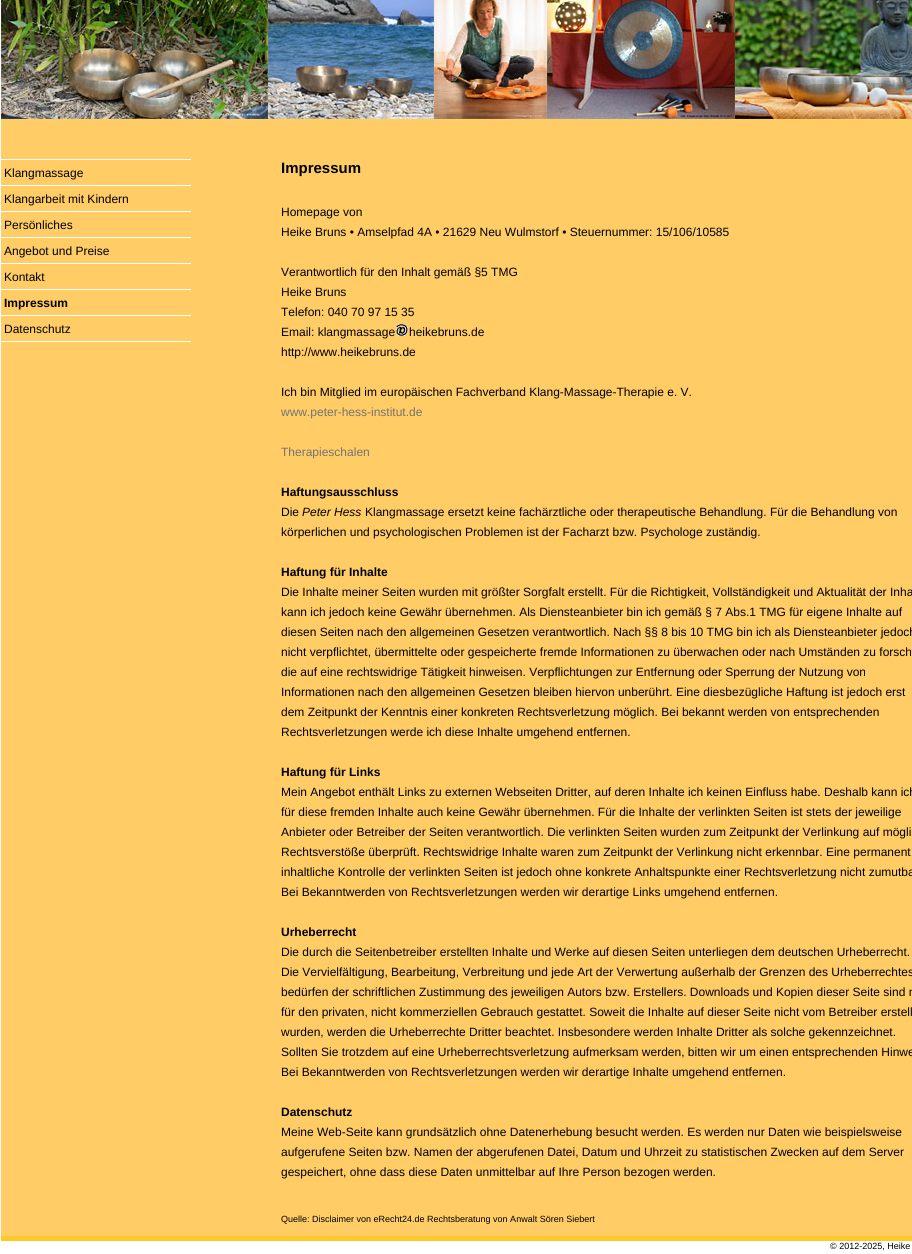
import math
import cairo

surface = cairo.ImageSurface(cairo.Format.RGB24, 912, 1254)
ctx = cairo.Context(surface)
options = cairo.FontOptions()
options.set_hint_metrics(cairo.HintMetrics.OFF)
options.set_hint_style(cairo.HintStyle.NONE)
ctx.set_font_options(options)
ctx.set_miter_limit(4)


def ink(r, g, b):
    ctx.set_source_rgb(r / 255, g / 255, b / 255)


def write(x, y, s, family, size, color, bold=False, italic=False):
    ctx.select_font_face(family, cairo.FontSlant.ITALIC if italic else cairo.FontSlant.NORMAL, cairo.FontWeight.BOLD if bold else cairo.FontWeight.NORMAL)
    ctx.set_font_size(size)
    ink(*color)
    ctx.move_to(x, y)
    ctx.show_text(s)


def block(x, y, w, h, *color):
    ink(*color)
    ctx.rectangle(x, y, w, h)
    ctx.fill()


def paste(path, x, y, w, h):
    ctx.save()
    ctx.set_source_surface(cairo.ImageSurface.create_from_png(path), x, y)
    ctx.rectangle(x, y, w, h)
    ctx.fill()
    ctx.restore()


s1 = dict(family="Liberation Sans", size=12, color=(0, 0, 0))
s2 = dict(family="Liberation Sans", size=12, color=(0, 0, 0), bold=True)
s3 = dict(family="Liberation Sans", size=15, color=(0, 0, 0), bold=True)
s4 = dict(family="Liberation Sans", size=12, color=(115, 115, 115))
s5 = dict(family="Liberation Sans", size=12, color=(0, 0, 0), italic=True)
s6 = dict(family="Liberation Sans", size=9, color=(0, 0, 0))

ink(255, 255, 255)
ctx.paint()
block(1, 119, 911, 1117, 255, 204, 102)
paste("pic1.png", 1, 0, 911, 119)
block(1, 159, 190, 1, 255, 255, 255)
write(4, 177, "Klangmassage", **s1)
block(1, 185, 190, 1, 255, 255, 255)
write(4, 203, "Klangarbeit mit Kindern", **s1)
block(1, 211, 190, 1, 255, 255, 255)
write(4, 229, "Persönliches", **s1)
block(1, 237, 190, 1, 255, 255, 255)
write(4, 255, "Angebot und Preise", **s1)
block(1, 263, 190, 1, 255, 255, 255)
write(4, 281, "Kontakt", **s1)
block(1, 289, 190, 1, 255, 255, 255)
write(4, 307, "Impressum", **s2)
block(1, 315, 190, 1, 255, 255, 255)
write(4, 333, "Datenschutz", **s1)
block(1, 341, 190, 1, 255, 255, 255)
write(281, 173, "Impressum", **s3)
write(281, 216, "Homepage von", **s1)
write(281, 236, "Heike Bruns • Amselpfad 4A • 21629 Neu Wulmstorf • Steuernummer: 15/106/10585", **s1)
write(281, 276, "Verantwortlich für den Inhalt gemäß §5 TMG", **s1)
write(281, 296, "Heike Bruns", **s1)
write(281, 316, "Telefon: 040 70 97 15 35", **s1)
write(281, 336, "Email: klangmassage", **s1)
paste("pic2.png", 396, 324, 12, 12)
write(409, 336, "heikebruns.de", **s1)
write(281, 356, "http://www.heikebruns.de", **s1)
write(281, 396, "Ich bin Mitglied im europäischen Fachverband Klang-Massage-Therapie e. V.", **s1)
write(281, 416, "www.peter-hess-institut.de", **s4)
write(281, 456, "Therapieschalen", **s4)
write(281, 496, "Haftungsausschluss", **s2)
write(281, 516, "Die", **s1)
write(302, 516, "Peter Hess", **s5)
write(365, 516, "Klangmassage ersetzt keine fachärztliche oder therapeutische Behandlung. Für die Behandlung von", **s1)
write(281, 536, "körperlichen und psychologischen Problemen ist der Facharzt bzw. Psychologe zuständig.", **s1)
write(281, 576, "Haftung für Inhalte", **s2)
write(281, 596, "Die Inhalte meiner Seiten wurden mit größter Sorgfalt erstellt. Für die Richtigkeit, Vollständigkeit und Aktualität der Inha", **s1)
write(281, 616, "kann ich jedoch keine Gewähr übernehmen. Als Diensteanbieter bin ich gemäß § 7 Abs.1 TMG für eigene Inhalte auf", **s1)
write(281, 636, "diesen Seiten nach den allgemeinen Gesetzen verantwortlich. Nach §§ 8 bis 10 TMG bin ich als Diensteanbieter jedoch", **s1)
write(281, 656, "nicht verpflichtet, übermittelte oder gespeicherte fremde Informationen zu überwachen oder nach Umständen zu forsch", **s1)
write(281, 676, "die auf eine rechtswidrige Tätigkeit hinweisen. Verpflichtungen zur Entfernung oder Sperrung der Nutzung von", **s1)
write(281, 696, "Informationen nach den allgemeinen Gesetzen bleiben hiervon unberührt. Eine diesbezügliche Haftung ist jedoch erst", **s1)
write(281, 716, "dem Zeitpunkt der Kenntnis einer konkreten Rechtsverletzung möglich. Bei bekannt werden von entsprechenden", **s1)
write(281, 736, "Rechtsverletzungen werde ich diese Inhalte umgehend entfernen.", **s1)
write(281, 776, "Haftung für Links", **s2)
write(281, 796, "Mein Angebot enthält Links zu externen Webseiten Dritter, auf deren Inhalte ich keinen Einfluss habe. Deshalb kann ich", **s1)
write(281, 816, "für diese fremden Inhalte auch keine Gewähr übernehmen. Für die Inhalte der verlinkten Seiten ist stets der jeweilige", **s1)
write(281, 836, "Anbieter oder Betreiber der Seiten verantwortlich. Die verlinkten Seiten wurden zum Zeitpunkt der Verlinkung auf mögli", **s1)
write(281, 856, "Rechtsverstöße überprüft. Rechtswidrige Inhalte waren zum Zeitpunkt der Verlinkung nicht erkennbar. Eine permanent", **s1)
write(281, 876, "inhaltliche Kontrolle der verlinkten Seiten ist jedoch ohne konkrete Anhaltspunkte einer Rechtsverletzung nicht zumutba", **s1)
write(281, 896, "Bei Bekanntwerden von Rechtsverletzungen werden wir derartige Links umgehend entfernen.", **s1)
write(281, 936, "Urheberrecht", **s2)
write(281, 956, "Die durch die Seitenbetreiber erstellten Inhalte und Werke auf diesen Seiten unterliegen dem deutschen Urheberrecht.", **s1)
write(281, 976, "Die Vervielfältigung, Bearbeitung, Verbreitung und jede Art der Verwertung außerhalb der Grenzen des Urheberrechtes", **s1)
write(281, 996, "bedürfen der schriftlichen Zustimmung des jeweiligen Autors bzw. Erstellers. Downloads und Kopien dieser Seite sind n", **s1)
write(281, 1016, "für den privaten, nicht kommerziellen Gebrauch gestattet. Soweit die Inhalte auf dieser Seite nicht vom Betreiber erstell", **s1)
write(281, 1036, "wurden, werden die Urheberrechte Dritter beachtet. Insbesondere werden Inhalte Dritter als solche gekennzeichnet.", **s1)
write(281, 1056, "Sollten Sie trotzdem auf eine Urheberrechtsverletzung aufmerksam werden, bitten wir um einen entsprechenden Hinwe", **s1)
write(281, 1076, "Bei Bekanntwerden von Rechtsverletzungen werden wir derartige Inhalte umgehend entfernen.", **s1)
write(281, 1116, "Datenschutz", **s2)
write(281, 1136, "Meine Web-Seite kann grundsätzlich ohne Datenerhebung besucht werden. Es werden nur Daten wie beispielsweise", **s1)
write(281, 1156, "aufgerufene Seiten bzw. Namen der abgerufenen Datei, Datum und Uhrzeit zu statistischen Zwecken auf dem Server", **s1)
write(281, 1176, "gespeichert, ohne dass diese Daten unmittelbar auf Ihre Person bezogen werden.", **s1)
write(281, 1222, "Quelle: Disclaimer von eRecht24.de Rechtsberatung von Anwalt Sören Siebert", **s6)
block(1, 1236, 911, 5, 253, 201, 40)
write(830, 1249, "© 2012-2025, Heike", **s6)
surface.write_to_png("screenshot.png")
